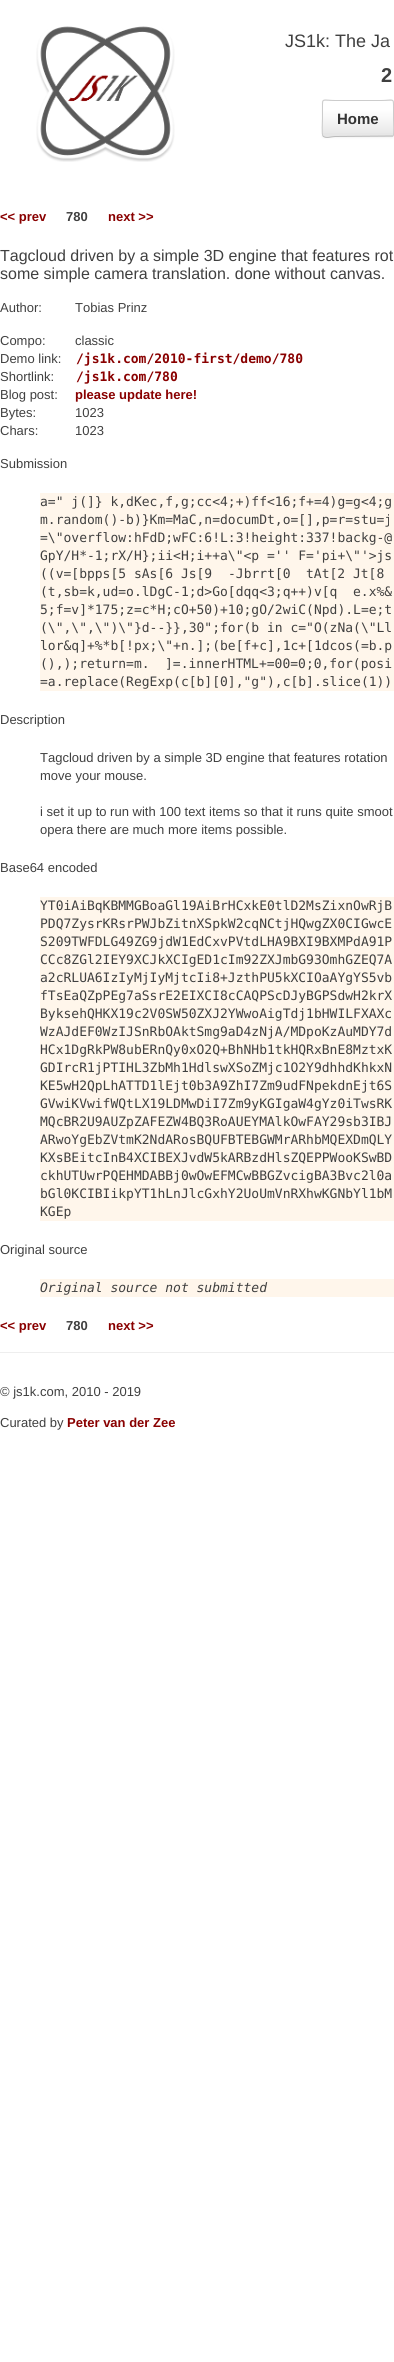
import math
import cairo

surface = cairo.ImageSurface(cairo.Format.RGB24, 394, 2362)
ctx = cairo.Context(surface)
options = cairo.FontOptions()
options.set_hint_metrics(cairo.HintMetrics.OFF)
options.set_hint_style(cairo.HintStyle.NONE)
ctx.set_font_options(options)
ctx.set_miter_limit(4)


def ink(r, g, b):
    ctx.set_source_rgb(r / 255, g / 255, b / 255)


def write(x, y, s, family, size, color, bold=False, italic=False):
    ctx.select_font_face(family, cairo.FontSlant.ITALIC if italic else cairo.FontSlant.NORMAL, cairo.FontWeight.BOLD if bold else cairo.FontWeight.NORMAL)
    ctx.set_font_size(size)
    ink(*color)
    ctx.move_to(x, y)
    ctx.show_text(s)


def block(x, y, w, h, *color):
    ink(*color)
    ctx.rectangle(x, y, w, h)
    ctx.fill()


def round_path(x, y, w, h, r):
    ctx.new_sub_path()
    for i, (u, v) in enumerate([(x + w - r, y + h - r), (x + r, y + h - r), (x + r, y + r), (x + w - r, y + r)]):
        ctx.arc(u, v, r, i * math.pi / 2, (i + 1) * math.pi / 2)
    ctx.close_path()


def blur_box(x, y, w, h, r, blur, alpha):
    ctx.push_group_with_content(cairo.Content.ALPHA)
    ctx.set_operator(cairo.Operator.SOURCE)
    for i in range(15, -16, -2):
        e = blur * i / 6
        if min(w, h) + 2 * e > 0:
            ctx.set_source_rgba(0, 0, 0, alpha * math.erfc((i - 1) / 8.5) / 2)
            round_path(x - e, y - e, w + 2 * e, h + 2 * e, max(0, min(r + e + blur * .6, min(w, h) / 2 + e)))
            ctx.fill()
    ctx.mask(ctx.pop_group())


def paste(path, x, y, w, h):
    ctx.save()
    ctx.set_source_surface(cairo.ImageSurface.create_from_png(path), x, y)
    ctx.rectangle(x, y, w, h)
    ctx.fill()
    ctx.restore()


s1 = dict(family="Liberation Sans", size=18, color=(64, 64, 64))
s2 = dict(family="Liberation Sans", size=20, color=(64, 64, 64), bold=True)
s3 = dict(family="Liberation Sans", size=15, color=(51, 51, 51), bold=True)
s4 = dict(family="Liberation Sans", size=13, color=(137, 0, 0), bold=True)
s5 = dict(family="Liberation Sans", size=13, color=(64, 64, 64), bold=True)
s6 = dict(family="Liberation Sans", size=16, color=(64, 64, 64))
s7 = dict(family="Liberation Sans", size=13, color=(64, 64, 64))
s8 = dict(family="DejaVu Sans Mono", size=13, color=(137, 0, 0), bold=True)
s9 = dict(family="DejaVu Sans Mono", size=13, color=(64, 64, 64))
s10 = dict(family="DejaVu Sans Mono", size=13, color=(64, 64, 64), italic=True)

ink(255, 255, 255)
ctx.paint()
paste("pic1.png", 36, 26, 139, 136)
write(285, 47, "JS1k: The Ja", **s1)
write(381, 82, "2", **s2)
ink(0, 0, 0)
blur_box(322, 101, 72, 37, 2, 1, 0.05)
ink(230, 230, 230)
round_path(322, 100, 72, 37, 2)
ctx.fill()
gradient = cairo.LinearGradient(358, 101, 358, 136)
gradient.add_color_stop_rgba(0, 1, 1, 1, 1)
gradient.add_color_stop_rgba(0.25, 1, 1, 1, 1)
gradient.add_color_stop_rgba(1, 0.902, 0.902, 0.902, 1)
ctx.set_source(gradient)
ctx.rectangle(323, 101, 70, 32)
ctx.fill()
ctx.set_source_rgba(1, 1, 1, 0.2)
ctx.new_path()
ctx.move_to(324, 102)
ctx.line_to(392, 102)
ctx.curve_to(393, 102, 393, 102, 393, 103)
ctx.curve_to(393, 102, 393, 101, 392, 101)
ctx.line_to(335, 101)
ctx.curve_to(332, 101, 323, 98, 323, 103)
ctx.curve_to(323, 102, 323, 102, 324, 102)
ctx.close_path()
ctx.fill()
ctx.new_path()
ctx.move_to(393, 136)
ctx.line_to(335.5, 136.5)
ctx.curve_to(331, 136.5, 326, 139, 323, 136)
ink(187, 187, 187)
ctx.set_line_width(1)
ctx.stroke()
ctx.new_path()
ctx.move_to(323, 136)
ctx.curve_to(321.5, 134.5, 322.5, 121, 322.5, 118.5)
ctx.line_to(322.5, 107.5)
ctx.curve_to(322.5, 97, 322.5, 100.5, 335.5, 100.5)
ctx.line_to(380.5, 100.5)
ctx.curve_to(393.5, 100.5, 393.5, 97, 393.5, 107.5)
ctx.line_to(393.5, 118.5)
ctx.curve_to(393.5, 121, 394.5, 134.5, 393, 136)
ink(204, 204, 204)
ctx.stroke()
write(337, 124, "Home", **s3)
write(0, 221, "<< prev", **s4)
write(66, 221, "780", **s5)
write(108, 221, "next >>", **s4)
write(0, 261, "Tagcloud driven by a simple 3D engine that features rot", **s6)
write(0, 279, "some simple camera translation. done without canvas.", **s6)
write(0, 312, "Author:", **s7)
write(75, 312, "Tobias Prinz", **s7)
write(0, 345, "Compo:", **s7)
write(75, 345, "classic", **s7)
write(0, 363, "Demo link:", **s7)
write(76, 363, "/js1k.com/2010-first/demo/780", **s8)
write(0, 381, "Shortlink:", **s7)
write(76, 381, "/js1k.com/780", **s8)
write(0, 399, "Blog post:", **s7)
write(75, 399, "please update here!", **s4)
write(0, 417, "Bytes:", **s7)
write(75, 417, "1023", **s7)
write(0, 435, "Chars:", **s7)
write(75, 435, "1023", **s7)
write(0, 468, "Submission", **s7)
block(40, 493, 354, 198, 255, 246, 235)
write(40, 506, "a=\" j(]} k,dKec,f,g;cc<4;+)ff<16;f+=4)g=g<4;g", **s9)
write(40, 524, "m.random()-b)}Km=MaC,n=documDt,o=[],p=r=stu=j", **s9)
write(40, 542, "=\\\"overflow:hFdD;wFC:6!L:3!height:337!backg-@", **s9)
write(40, 560, "GpY/H*-1;rX/H};ii<H;i++a\\\"<p ='' F='pi+\\\"'>js", **s9)
write(40, 578, "((v=[bpps[5 sAs[6 Js[9", **s9)
write(228, 578, "-Jbrrt[0", **s9)
write(306, 578, "tAt[2 Jt[8", **s9)
write(40, 596, "(t,sb=k,ud=o.lDgC-1;d>Go[dqq<3;q++)v[q", **s9)
write(353, 596, "e.x%&", **s9)
write(40, 614, "5;f=v]*175;z=c*H;cO+50)+10;gO/2wiC(Npd).L=e;t", **s9)
write(40, 632, "(\\\",\\\",\\\")\\\"}d--}},30\";for(b in c=\"O(zNa(\\\"Ll", **s9)
write(40, 650, "lor&q]+%*b[!px;\\\"+n.];(be[f+c],1c+[1dcos(=b.p", **s9)
write(40, 668, "(),);return=m.", **s9)
write(165, 668, "]=.innerHTML+=00=0;0,for(posi", **s9)
write(40, 686, "=a.replace(RegExp(c[b][0],\"g\"),c[b].slice(1))", **s9)
write(0, 724, "Description", **s7)
write(40, 762, "Tagcloud driven by a simple 3D engine that features rotation", **s7)
write(40, 780, "move your mouse.", **s7)
write(40, 816, "i set it up to run with 100 text items so that it runs quite smoot", **s7)
write(40, 834, "opera there are much more items possible.", **s7)
write(0, 872, "Base64 encoded", **s7)
block(40, 897, 354, 324, 255, 246, 235)
write(40, 910, "YT0iAiBqKBMMGBoaGl19AiBrHCxkE0tlD2MsZixnOwRjB", **s9)
write(40, 928, "PDQ7ZysrKRsrPWJbZitnXSpkW2cqNCtjHQwgZX0CIGwcE", **s9)
write(40, 946, "S209TWFDLG49ZG9jdW1EdCxvPVtdLHA9BXI9BXMPdA91P", **s9)
write(40, 964, "CCc8ZGl2IEY9XCJkXCIgED1cIm92ZXJmbG93OmhGZEQ7A", **s9)
write(40, 982, "a2cRLUA6IzIyMjIyMjtcIi8+JzthPU5kXCIOaAYgYS5vb", **s9)
write(40, 1000, "fTsEaQZpPEg7aSsrE2EIXCI8cCAQPScDJyBGPSdwH2krX", **s9)
write(40, 1018, "ByksehQHKX19c2V0SW50ZXJ2YWwoAigTdj1bHWILFXAXc", **s9)
write(40, 1036, "WzAJdEF0WzIJSnRbOAktSmg9aD4zNjA/MDpoKzAuMDY7d", **s9)
write(40, 1054, "HCx1DgRkPW8ubERnQy0xO2Q+BhNHb1tkHQRxBnE8MztxK", **s9)
write(40, 1072, "GDIrcR1jPTIHL3ZbMh1HdlswXSoZMjc1O2Y9dhhdKhkxN", **s9)
write(40, 1090, "KE5wH2QpLhATTD1lEjt0b3A9ZhI7Zm9udFNpekdnEjt6S", **s9)
write(40, 1108, "GVwiKVwifWQtLX19LDMwDiI7Zm9yKGIgaW4gYz0iTwsRK", **s9)
write(40, 1126, "MQcBR2U9AUZpZAFEZW4BQ3RoAUEYMAlkOwFAY29sb3IBJ", **s9)
write(40, 1144, "ARwoYgEbZVtmK2NdARosBQUFBTEBGWMrARhbMQEXDmQLY", **s9)
write(40, 1162, "KXsBEitcInB4XCIBEXJvdW5kARBzdHlsZQEPPWooKSwBD", **s9)
write(40, 1180, "ckhUTUwrPQEHMDABBj0wOwEFMCwBBGZvcigBA3Bvc2l0a", **s9)
write(40, 1198, "bGl0KCIBIikpYT1hLnJlcGxhY2UoUmVnRXhwKGNbYl1bM", **s9)
write(40, 1216, "KGEp", **s9)
write(0, 1254, "Original source", **s7)
block(40, 1279, 354, 18, 255, 246, 235)
write(40, 1292, "Original source not submitted", **s10)
write(0, 1330, "<< prev", **s4)
write(66, 1330, "780", **s5)
write(108, 1330, "next >>", **s4)
block(0, 1352, 394, 1, 238, 238, 238)
write(0, 1396, "© js1k.com, 2010 - 2019", **s7)
write(0, 1427, "Curated by", **s7)
write(67, 1427, "Peter van der Zee", **s4)
surface.write_to_png("screenshot.png")
